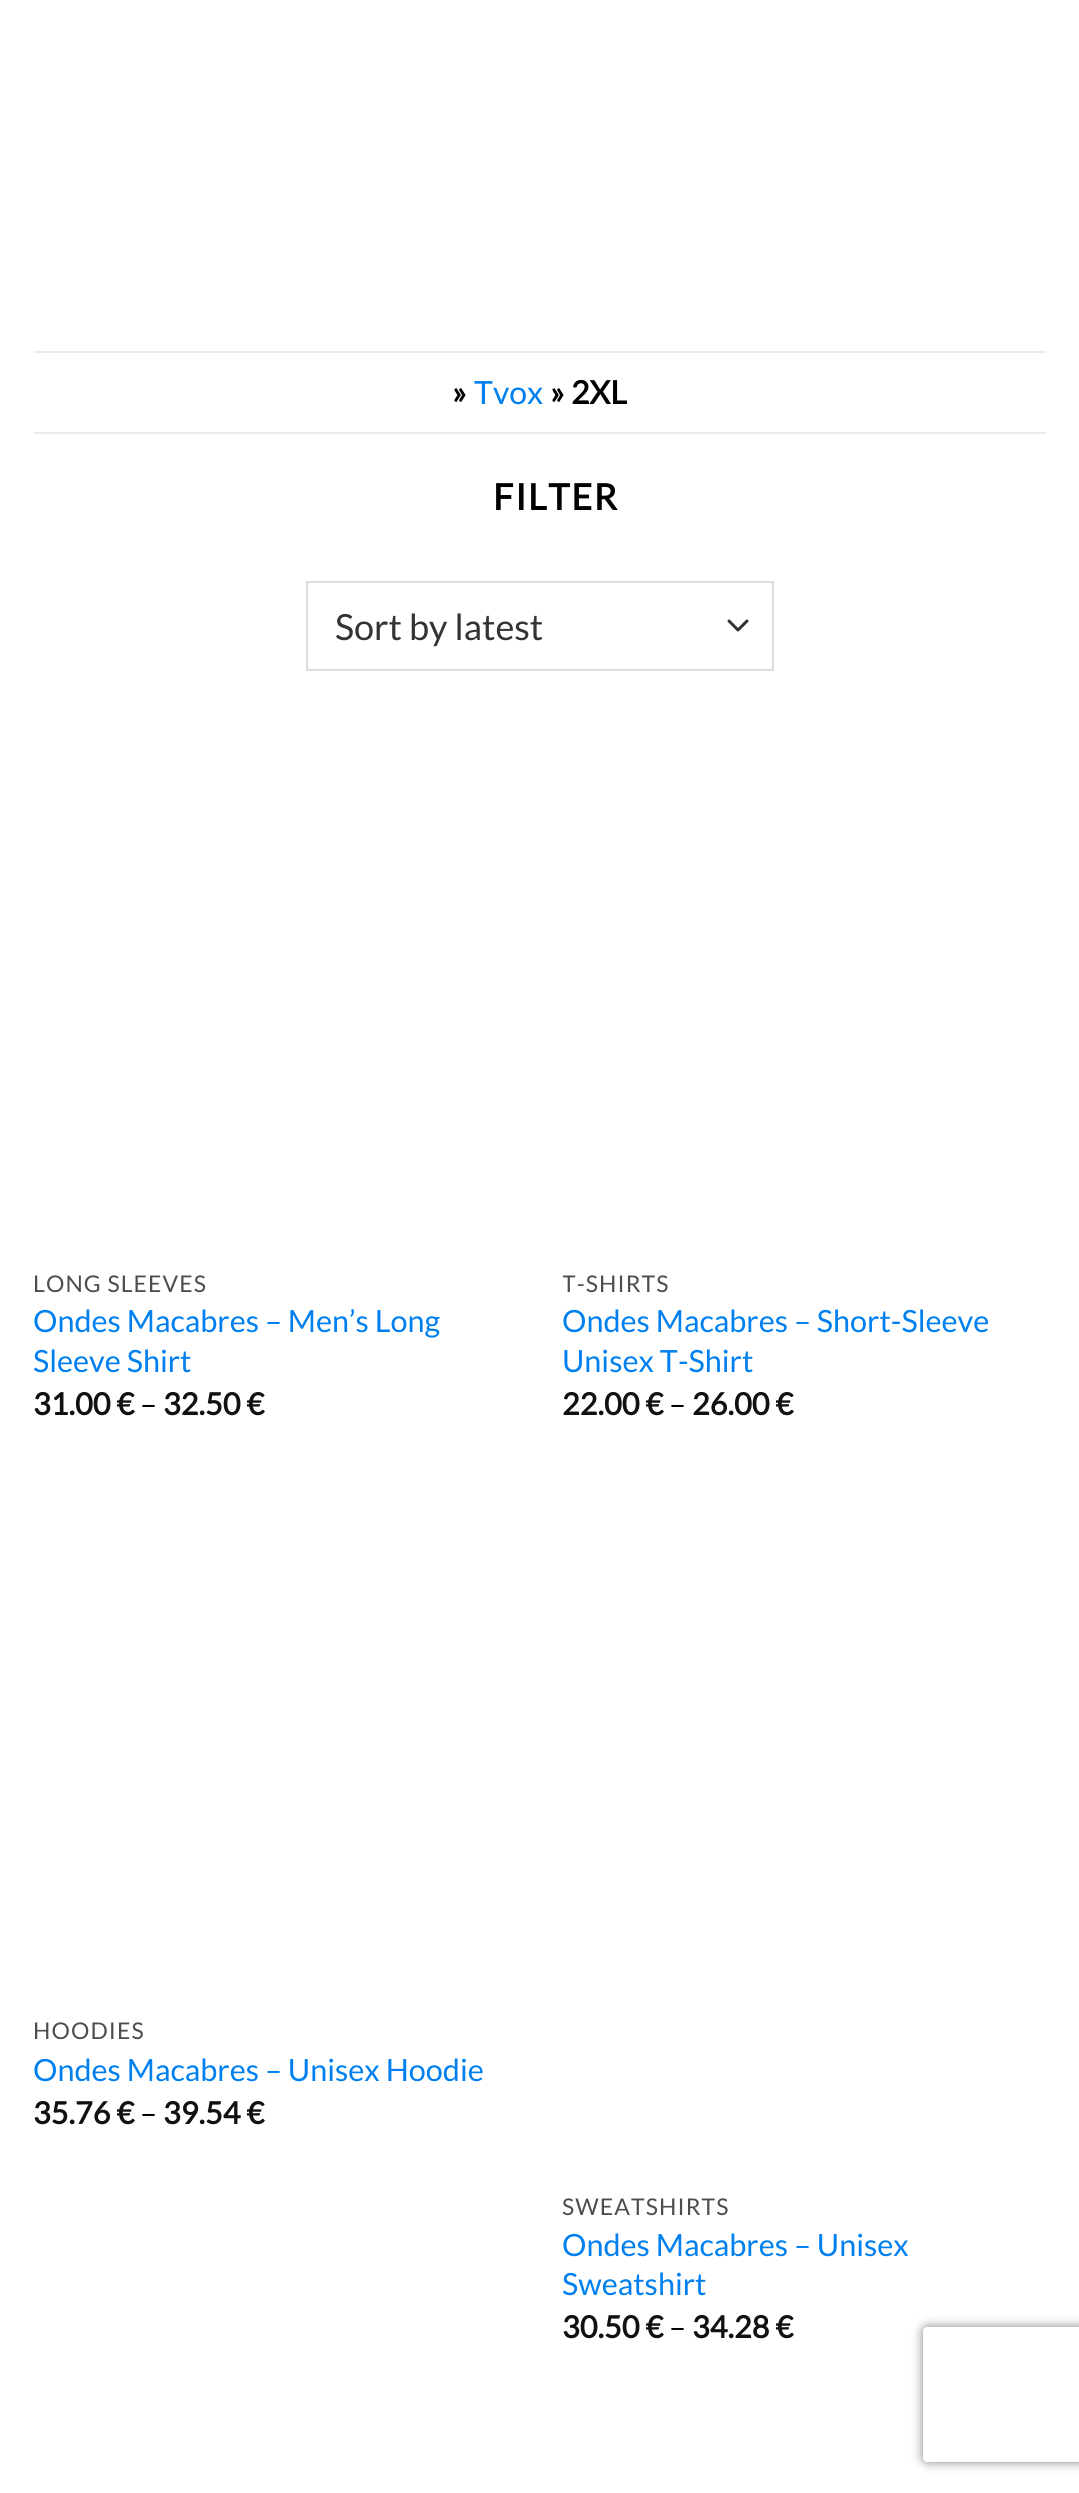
import math
import cairo

surface = cairo.ImageSurface(cairo.Format.RGB24, 1079, 2493)
ctx = cairo.Context(surface)
options = cairo.FontOptions()
options.set_hint_metrics(cairo.HintMetrics.OFF)
options.set_hint_style(cairo.HintStyle.NONE)
ctx.set_font_options(options)
ctx.set_miter_limit(4)


def ink(r, g, b):
    ctx.set_source_rgb(r / 255, g / 255, b / 255)


def write(x, y, s, family, size, color, bold=False, italic=False):
    ctx.select_font_face(family, cairo.FontSlant.ITALIC if italic else cairo.FontSlant.NORMAL, cairo.FontWeight.BOLD if bold else cairo.FontWeight.NORMAL)
    ctx.set_font_size(size)
    ink(*color)
    ctx.move_to(x, y)
    ctx.show_text(s)


def write_spaced(x, y, s, letter, word):
    ctx.move_to(x, y)
    for ch in s:
        ctx.show_text(ch)
        ctx.rel_move_to(letter + word * (ch == ' '), 0)


def block(x, y, w, h, *color):
    ink(*color)
    ctx.rectangle(x, y, w, h)
    ctx.fill()


def round_path(x, y, w, h, r):
    ctx.new_sub_path()
    for i, (u, v) in enumerate([(x + w - r, y + h - r), (x + r, y + h - r), (x + r, y + r), (x + w - r, y + r)]):
        ctx.arc(u, v, r, i * math.pi / 2, (i + 1) * math.pi / 2)
    ctx.close_path()


def blur_box(x, y, w, h, r, blur, alpha):
    ctx.push_group_with_content(cairo.Content.ALPHA)
    ctx.set_operator(cairo.Operator.SOURCE)
    for i in range(15, -16, -2):
        e = blur * i / 6
        if min(w, h) + 2 * e > 0:
            ctx.set_source_rgba(0, 0, 0, alpha * math.erfc((i - 1) / 8.5) / 2)
            round_path(x - e, y - e, w + 2 * e, h + 2 * e, max(0, min(r + e + blur * .6, min(w, h) / 2 + e)))
            ctx.fill()
    ctx.mask(ctx.pop_group())


s1 = dict(family="Lato", size=32, color=(0, 0, 0), bold=True)
s2 = dict(family="Lato", size=32, color=(0, 128, 239))
s3 = dict(family="Lato", size=36, color=(51, 51, 51))
s4 = dict(family="Lato", size=30.6, color=(0, 128, 239))
s5 = dict(family="Lato", size=30.6, color=(17, 17, 17), bold=True)
s6 = dict(family="Lato", size=30.6, color=(0, 0, 0))

ink(255, 255, 255)
ctx.paint()
block(34, 351, 1012, 2, 236, 236, 236)
block(34, 432, 1012, 2, 236, 236, 236)
write(452, 404, "»", **s1)
write(474, 404, "Tvox", **s2)
write(550, 404, "» 2XL", **s1)
ctx.set_font_size(36)
write_spaced(493, 510, "FILTER", 1.75, 0)
ctx.new_path()
ctx.move_to(729, 621)
ctx.line_to(738, 630)
ctx.line_to(747, 621)
ink(51, 51, 51)
ctx.set_line_width(3)
ctx.set_line_cap(cairo.LineCap.ROUND)
ctx.set_line_join(cairo.LineJoin.ROUND)
ctx.stroke()
ctx.rectangle(307, 582, 466, 88)
ink(221, 221, 221)
ctx.set_line_width(2)
ctx.set_line_cap(cairo.LineCap.BUTT)
ctx.set_line_join(cairo.LineJoin.MITER)
ctx.stroke()
write(335, 640, "Sort by latest", **s3)
ctx.set_font_size(23)
ink(77, 77, 77)
write_spaced(33, 1292, "LONG SLEEVES", 1.1, 0)
write(33, 1332, "Ondes Macabres – Men’s Long", **s4)
write(33, 1372, "Sleeve Shirt", **s4)
write(33, 1415, "31.00 €", **s5)
write(140, 1415, "–", **s6)
write(163, 1415, "32.50 €", **s5)
ctx.save()
ctx.rectangle(563, 1269, 483, 27)
ctx.clip()
ctx.select_font_face("Lato")
ctx.set_font_size(23)
ink(77, 77, 77)
write_spaced(562, 1292, "T-SHIRTS", 1.1, 0)
ctx.restore()
write(562, 1332, "Ondes Macabres – Short-Sleeve", **s4)
write(562, 1372, "Unisex T-Shirt", **s4)
write(562, 1415, "22.00 €", **s5)
write(669, 1415, "–", **s6)
write(692, 1415, "26.00 €", **s5)
ctx.select_font_face("Lato")
ctx.set_font_size(23)
ink(77, 77, 77)
write_spaced(33, 2039, "HOODIES", 1.1, 0)
write(33, 2081, "Ondes Macabres – Unisex Hoodie", **s4)
write(33, 2124, "35.76 €", **s5)
write(140, 2124, "–", **s6)
write(163, 2124, "39.54 €", **s5)
ctx.select_font_face("Lato")
ctx.set_font_size(23)
ink(77, 77, 77)
write_spaced(562, 2215, "SWEATSHIRTS", 1.1, 0)
write(562, 2256, "Ondes Macabres – Unisex", **s4)
write(562, 2295, "Sweatshirt", **s4)
write(562, 2338, "30.50 €", **s5)
write(669, 2338, "–", **s6)
write(692, 2338, "34.28 €", **s5)
ctx.save()
ctx.set_fill_rule(cairo.FillRule.EVEN_ODD)
ctx.new_path()
ctx.move_to(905, 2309)
ctx.line_to(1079, 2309)
ctx.line_to(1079, 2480)
ctx.line_to(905, 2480)
ctx.close_path()
ctx.move_to(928, 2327)
ctx.line_to(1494, 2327)
ctx.curve_to(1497, 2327, 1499, 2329, 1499, 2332)
ctx.line_to(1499, 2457)
ctx.curve_to(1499, 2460, 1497, 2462, 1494, 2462)
ctx.line_to(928, 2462)
ctx.curve_to(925, 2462, 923, 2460, 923, 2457)
ctx.line_to(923, 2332)
ctx.curve_to(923, 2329, 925, 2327, 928, 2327)
ctx.close_path()
ctx.clip()
ink(128, 128, 128)
blur_box(923, 2327, 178, 135, 5, 5.5, 1)
ctx.restore()
surface.write_to_png("screenshot.png")
